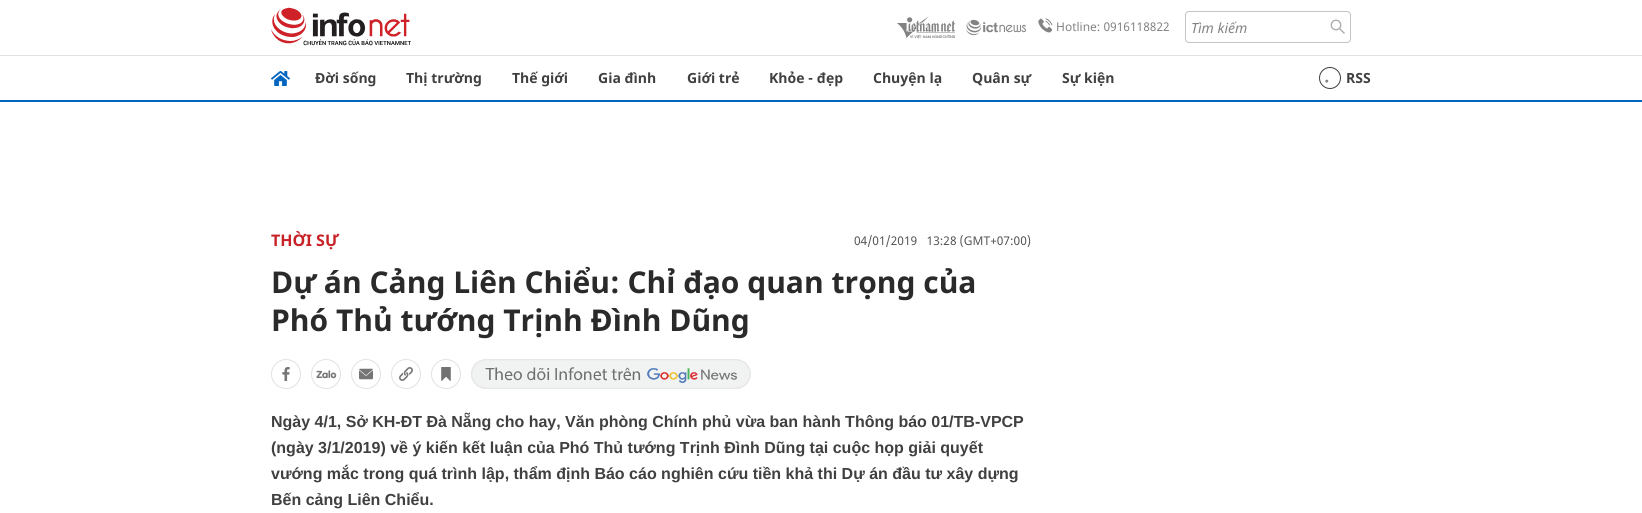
import math
import cairo

surface = cairo.ImageSurface(cairo.Format.RGB24, 1642, 513)
ctx = cairo.Context(surface)
options = cairo.FontOptions()
options.set_hint_metrics(cairo.HintMetrics.OFF)
options.set_hint_style(cairo.HintStyle.NONE)
ctx.set_font_options(options)
ctx.set_miter_limit(4)


def ink(r, g, b):
    ctx.set_source_rgb(r / 255, g / 255, b / 255)


def write(x, y, s, family, size, color, bold=False, italic=False):
    ctx.select_font_face(family, cairo.FontSlant.ITALIC if italic else cairo.FontSlant.NORMAL, cairo.FontWeight.BOLD if bold else cairo.FontWeight.NORMAL)
    ctx.set_font_size(size)
    ink(*color)
    ctx.move_to(x, y)
    ctx.show_text(s)


def block(x, y, w, h, *color):
    ink(*color)
    ctx.rectangle(x, y, w, h)
    ctx.fill()


def round_path(x, y, w, h, r):
    ctx.new_sub_path()
    for i, (u, v) in enumerate([(x + w - r, y + h - r), (x + r, y + h - r), (x + r, y + r), (x + w - r, y + r)]):
        ctx.arc(u, v, r, i * math.pi / 2, (i + 1) * math.pi / 2)
    ctx.close_path()


def paste(path, x, y, w, h):
    ctx.save()
    ctx.set_source_surface(cairo.ImageSurface.create_from_png(path), x, y)
    ctx.rectangle(x, y, w, h)
    ctx.fill()
    ctx.restore()


s1 = dict(family="Noto Sans", size=12, color=(131, 131, 131))
s2 = dict(family="Noto Sans", size=14, color=(131, 131, 131), italic=True)
s3 = dict(family="Noto Sans", size=14, color=(64, 64, 64), bold=True)
s4 = dict(family="Noto Sans", size=16, color=(200, 34, 40), bold=True)
s5 = dict(family="Noto Sans", size=12, color=(85, 85, 85))
s6 = dict(family="Noto Sans", size=30, color=(42, 42, 42), bold=True)
s7 = dict(family="Liberation Sans", size=16, color=(64, 64, 64), bold=True)

ink(255, 255, 255)
ctx.paint()
block(0, 55, 1642, 1, 226, 226, 226)
paste("pic1.png", 271, 7, 140, 39)
paste("pic2.png", 897, 16, 59, 23)
paste("pic3.png", 966, 19, 60, 17)
paste("pic4.png", 1038, 18, 15, 15)
write(1056, 31, "Hotline: 0916118822", **s1)
round_path(1185.5, 11.5, 165, 31, 3.5)
ink(196, 196, 196)
ctx.set_line_width(1)
ctx.stroke()
write(1191, 33, "Tìm kiếm", **s2)
paste("pic5.png", 1330, 19, 15, 15)
block(0, 100, 1642, 2, 0, 101, 191)
paste("pic6.png", 271, 71, 19, 15)
write(315, 83, "Đời sống", **s3)
write(406, 83, "Thị trường", **s3)
write(512, 83, "Thế giới", **s3)
write(598, 83, "Gia đình", **s3)
write(687, 83, "Giới trẻ", **s3)
write(769, 83, "Khỏe - đẹp", **s3)
write(873, 83, "Chuyện lạ", **s3)
write(972, 83, "Quân sự", **s3)
write(1062, 83, "Sự kiện", **s3)
paste("pic7.png", 1325, 79, 4, 4)
ctx.arc(1330, 78, 10.5, 0, 2 * math.pi)
ink(62, 62, 62)
ctx.stroke()
write(1346, 83, "RSS", **s3)
write(271, 246, "THỜI SỰ", **s4)
write(854, 245, "04/01/2019   13:28 (GMT+07:00)", **s5)
write(271, 293, "Dự án Cảng Liên Chiểu: Chỉ đạo quan trọng của", **s6)
write(271, 331, "Phó Thủ tướng Trịnh Đình Dũng", **s6)
ctx.new_path()
ctx.arc(286, 374, 14.5, 0, 2 * math.pi)
ink(226, 226, 226)
ctx.stroke()
paste("pic8.png", 282, 367, 8, 14)
ctx.arc(326, 374, 14.5, 0, 2 * math.pi)
ctx.stroke()
paste("pic9.png", 316, 370, 21, 9)
ctx.arc(366, 374, 14.5, 0, 2 * math.pi)
ctx.stroke()
paste("pic10.png", 359, 368, 14, 12)
ctx.arc(406, 374, 14.5, 0, 2 * math.pi)
ctx.stroke()
paste("pic11.png", 399, 367, 14, 14)
ctx.arc(446, 374, 14.5, 0, 2 * math.pi)
ctx.stroke()
paste("pic12.png", 441, 367, 10, 14)
paste("pic13.png", 471, 359, 280, 30)
write(271, 427, "Ngày 4/1, Sở KH-ĐT Đà Nẵng cho hay, Văn phòng Chính phủ vừa ban hành Thông báo 01/TB-VPCP", **s7)
write(271, 453, "(ngày 3/1/2019) về ý kiến kết luận của Phó Thủ tướng Trịnh Đình Dũng tại cuộc họp giải quyết", **s7)
write(271, 479, "vướng mắc trong quá trình lập, thẩm định Báo cáo nghiên cứu tiền khả thi Dự án đầu tư xây dựng", **s7)
write(271, 505, "Bến cảng Liên Chiểu.", **s7)
surface.write_to_png("screenshot.png")
